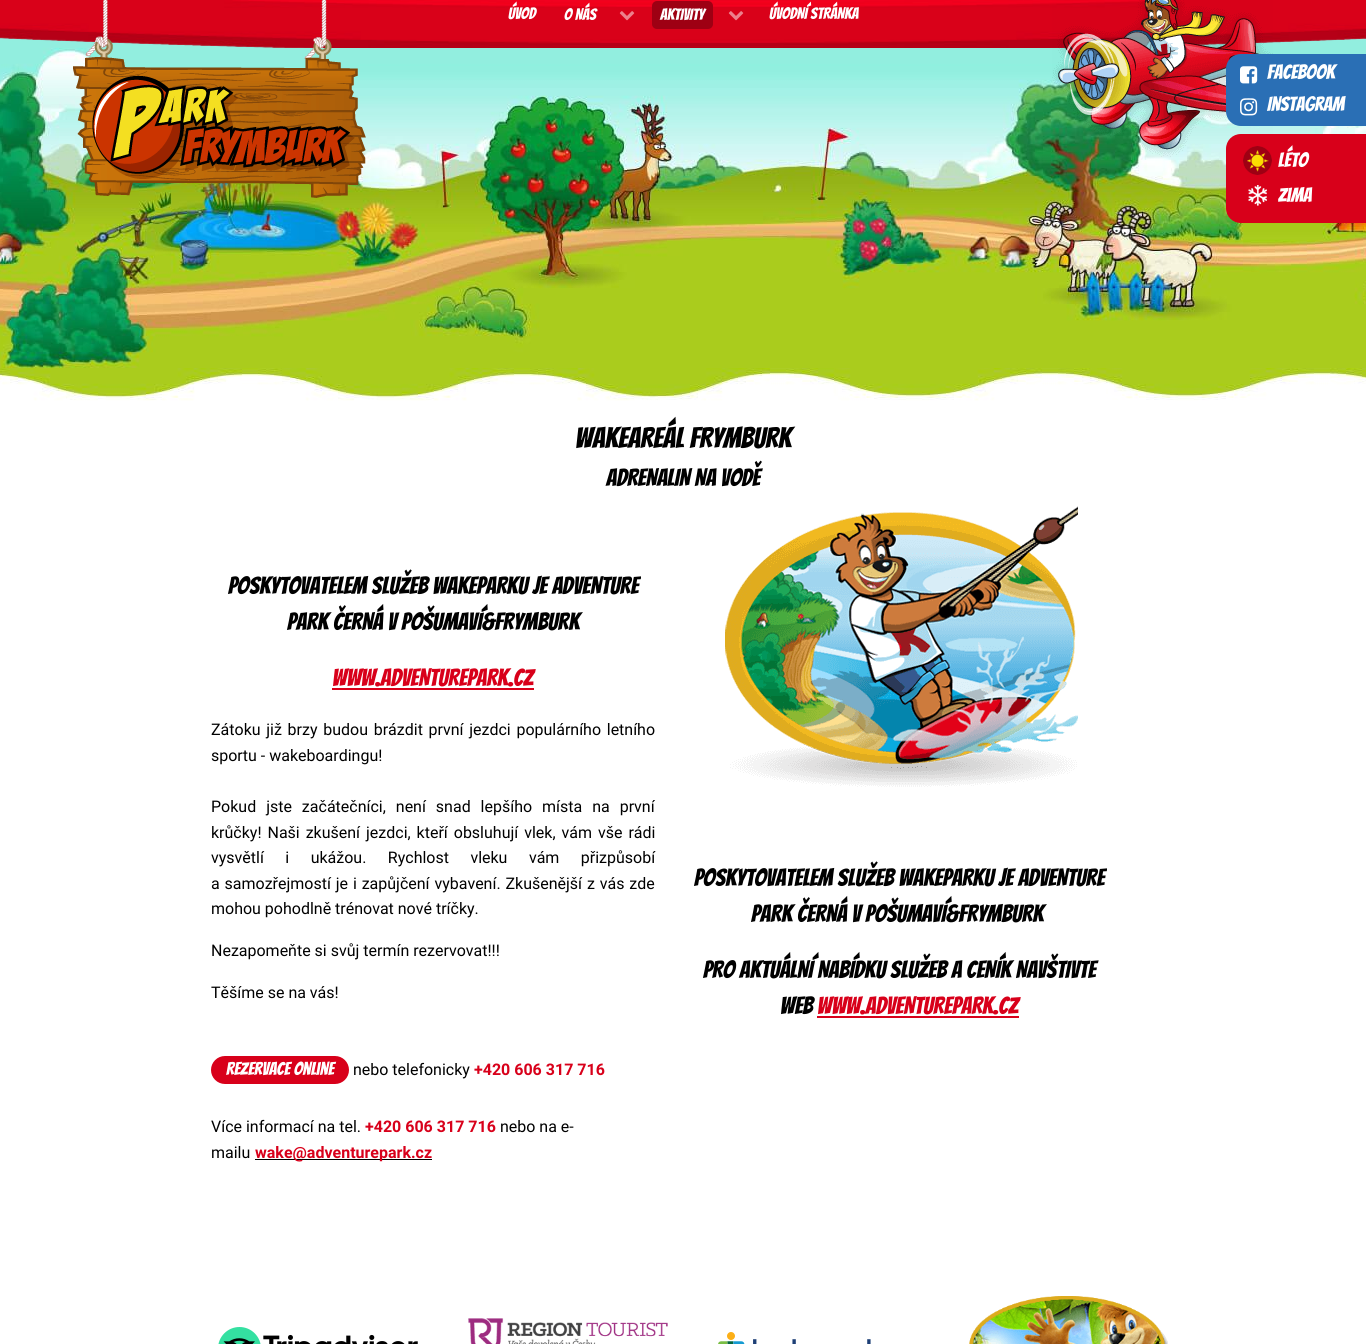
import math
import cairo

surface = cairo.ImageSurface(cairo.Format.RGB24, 1366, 1344)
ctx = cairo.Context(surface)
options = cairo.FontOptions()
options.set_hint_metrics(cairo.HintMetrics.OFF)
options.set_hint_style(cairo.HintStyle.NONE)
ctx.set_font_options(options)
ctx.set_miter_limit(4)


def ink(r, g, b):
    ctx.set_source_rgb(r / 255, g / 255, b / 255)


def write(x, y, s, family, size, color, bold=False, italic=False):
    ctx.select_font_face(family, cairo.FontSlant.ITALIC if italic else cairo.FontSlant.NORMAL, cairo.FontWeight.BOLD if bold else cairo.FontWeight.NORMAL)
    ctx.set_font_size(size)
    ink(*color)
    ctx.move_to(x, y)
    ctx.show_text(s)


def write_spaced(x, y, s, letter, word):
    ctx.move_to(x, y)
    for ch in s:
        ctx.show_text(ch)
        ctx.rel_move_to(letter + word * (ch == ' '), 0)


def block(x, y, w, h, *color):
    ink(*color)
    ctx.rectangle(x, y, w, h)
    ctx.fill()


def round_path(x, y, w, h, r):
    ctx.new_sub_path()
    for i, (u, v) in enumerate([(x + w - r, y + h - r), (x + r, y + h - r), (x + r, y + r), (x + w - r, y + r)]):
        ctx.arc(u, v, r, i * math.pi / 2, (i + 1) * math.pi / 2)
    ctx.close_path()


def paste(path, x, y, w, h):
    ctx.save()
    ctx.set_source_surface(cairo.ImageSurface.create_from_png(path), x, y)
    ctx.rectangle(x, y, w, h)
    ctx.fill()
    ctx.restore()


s1 = dict(family="Bangers", size=16, color=(255, 255, 255))
s2 = dict(family="Bangers", size=20, color=(255, 255, 255))
s3 = dict(family="Bangers", size=28.75, color=(0, 0, 0))
s4 = dict(family="Bangers", size=24, color=(0, 0, 0))
s5 = dict(family="Bangers", size=24, color=(216, 0, 26))
s6 = dict(family="Roboto", size=16, color=(0, 0, 0))
s7 = dict(family="Bangers", size=18, color=(255, 255, 255))
s8 = dict(family="Roboto", size=16, color=(216, 0, 26), bold=True)

ink(255, 255, 255)
ctx.paint()
paste("pic5.png", 0, 37, 1366, 331)
paste("pic2.png", 0, 0, 1366, 48)
paste("pic1.png", 73, 0, 293, 198)
write(508, 19, "ÚVOD", **s1)
write(564, 20, "O NÁS", **s1)
paste("pic3.png", 619, 11, 16, 10)
ink(158, 0, 19)
round_path(652, 1, 61, 28, 5)
ctx.fill()
write(660, 20, "AKTIVITY", **s1)
paste("pic3.png", 728, 11, 16, 10)
write(769, 19, "ÚVODNÍ STRÁNKA", **s1)
paste("pic4.png", 1052, 0, 221, 157)
ink(42, 111, 181)
ctx.new_path()
ctx.move_to(1241, 54)
ctx.line_to(1366, 54)
ctx.line_to(1366, 126)
ctx.line_to(1241, 126)
ctx.curve_to(1232.5, 126, 1226, 119.5, 1226, 111)
ctx.line_to(1226, 69)
ctx.curve_to(1226, 60.5, 1232.5, 54, 1241, 54)
ctx.close_path()
ctx.fill()
paste("pic6.png", 1240, 66, 18, 18)
write(1267, 79, "Facebook", **s2)
paste("pic7.png", 1240, 98, 18, 18)
write(1267, 111, "Instagram", **s2)
ink(216, 0, 26)
ctx.new_path()
ctx.move_to(1241, 134)
ctx.line_to(1366, 134)
ctx.line_to(1366, 223)
ctx.line_to(1241, 223)
ctx.curve_to(1232.5, 223, 1226, 216.5, 1226, 208)
ctx.line_to(1226, 149)
ctx.curve_to(1226, 140.5, 1232.5, 134, 1241, 134)
ctx.close_path()
ctx.fill()
paste("pic8.png", 1243, 146, 29, 29)
write(1278, 167, "Léto", **s2)
paste("pic9.png", 1248, 185, 19, 21)
write(1278, 202, "Zima", **s2)
paste("pic10.png", 0, 368, 1366, 33)
write(575, 448, "WAKEAREÁL FRYMBURK", **s3)
write(606, 486, "ADRENALIN NA VODĚ", **s4)
write(228, 594, "POSKYTOVATELEM SLUŽEB WAKEPARKU JE ADVENTURE", **s4)
write(287, 630, "PARK ČERNÁ V POŠUMAVÍ&FRYMBURK", **s4)
write(332, 686, "WWW.ADVENTUREPARK.CZ", **s5)
block(332, 688, 202, 2, 216, 0, 26)
ctx.select_font_face("Roboto")
ctx.set_font_size(16)
ink(0, 0, 0)
write_spaced(211, 735, "Zátoku již brzy budou brázdit první jezdci populárního letního", 0, 1.75)
write(211, 761, "sportu - wakeboardingu!", **s6)
write_spaced(211, 812, "Pokud jste začátečníci, není snad lepšího místa na první", 0, 6)
write_spaced(211, 838, "krůčky! Naši zkušení jezdci, kteří obsluhují vlek, vám vše rádi", 0, 2)
write_spaced(211, 863, "vysvětlí i ukážou. Rychlost vleku vám přizpůsobí", 0, 17.5)
write_spaced(211, 889, "a samozřejmostí je i zapůjčení vybavení. Zkušenější z vás zde", 0, 0.9)
write(211, 914, "mohou pohodlně trénovat nové tríčky.", **s6)
write(211, 956, "Nezapomeňte si svůj termín rezervovat!!!", **s6)
write(211, 998, "Těšíme se na vás!", **s6)
ink(216, 0, 26)
round_path(211, 1056, 138, 28, 14)
ctx.fill()
write(226, 1075, "Rezervace online", **s7)
write(353, 1075, "nebo telefonicky", **s6)
write(474, 1075, "+420 606 317 716", **s8)
write(211, 1132, "Více informací na tel.", **s6)
write(365, 1132, "+420 606 317 716", **s8)
write(500, 1132, "nebo na e-", **s6)
write(211, 1158, "mailu", **s6)
block(255, 1159, 177, 1, 0, 0, 0)
write(255, 1158, "wake@adventurepark.cz", **s8)
paste("pic11.png", 725, 506, 353, 281)
write(694, 886, "POSKYTOVATELEM SLUŽEB WAKEPARKU JE ADVENTURE", **s4)
write(751, 922, "PARK ČERNÁ V POŠUMAVÍ&FRYMBURK", **s4)
write(703, 978, "PRO AKTUÁLNÍ NABÍDKU SLUŽEB A CENÍK NAVŠTIVTE", **s4)
write(780, 1014, "WEB", **s4)
write(817, 1014, "WWW.ADVENTUREPARK.CZ", **s5)
block(817, 1016, 202, 2, 216, 0, 26)
paste("pic12.png", 218, 1327, 200, 17)
paste("pic13.png", 468, 1318, 200, 26)
paste("pic14.png", 718, 1332, 153, 12)
paste("pic15.png", 969, 1296, 199, 48)
surface.write_to_png("screenshot.png")
